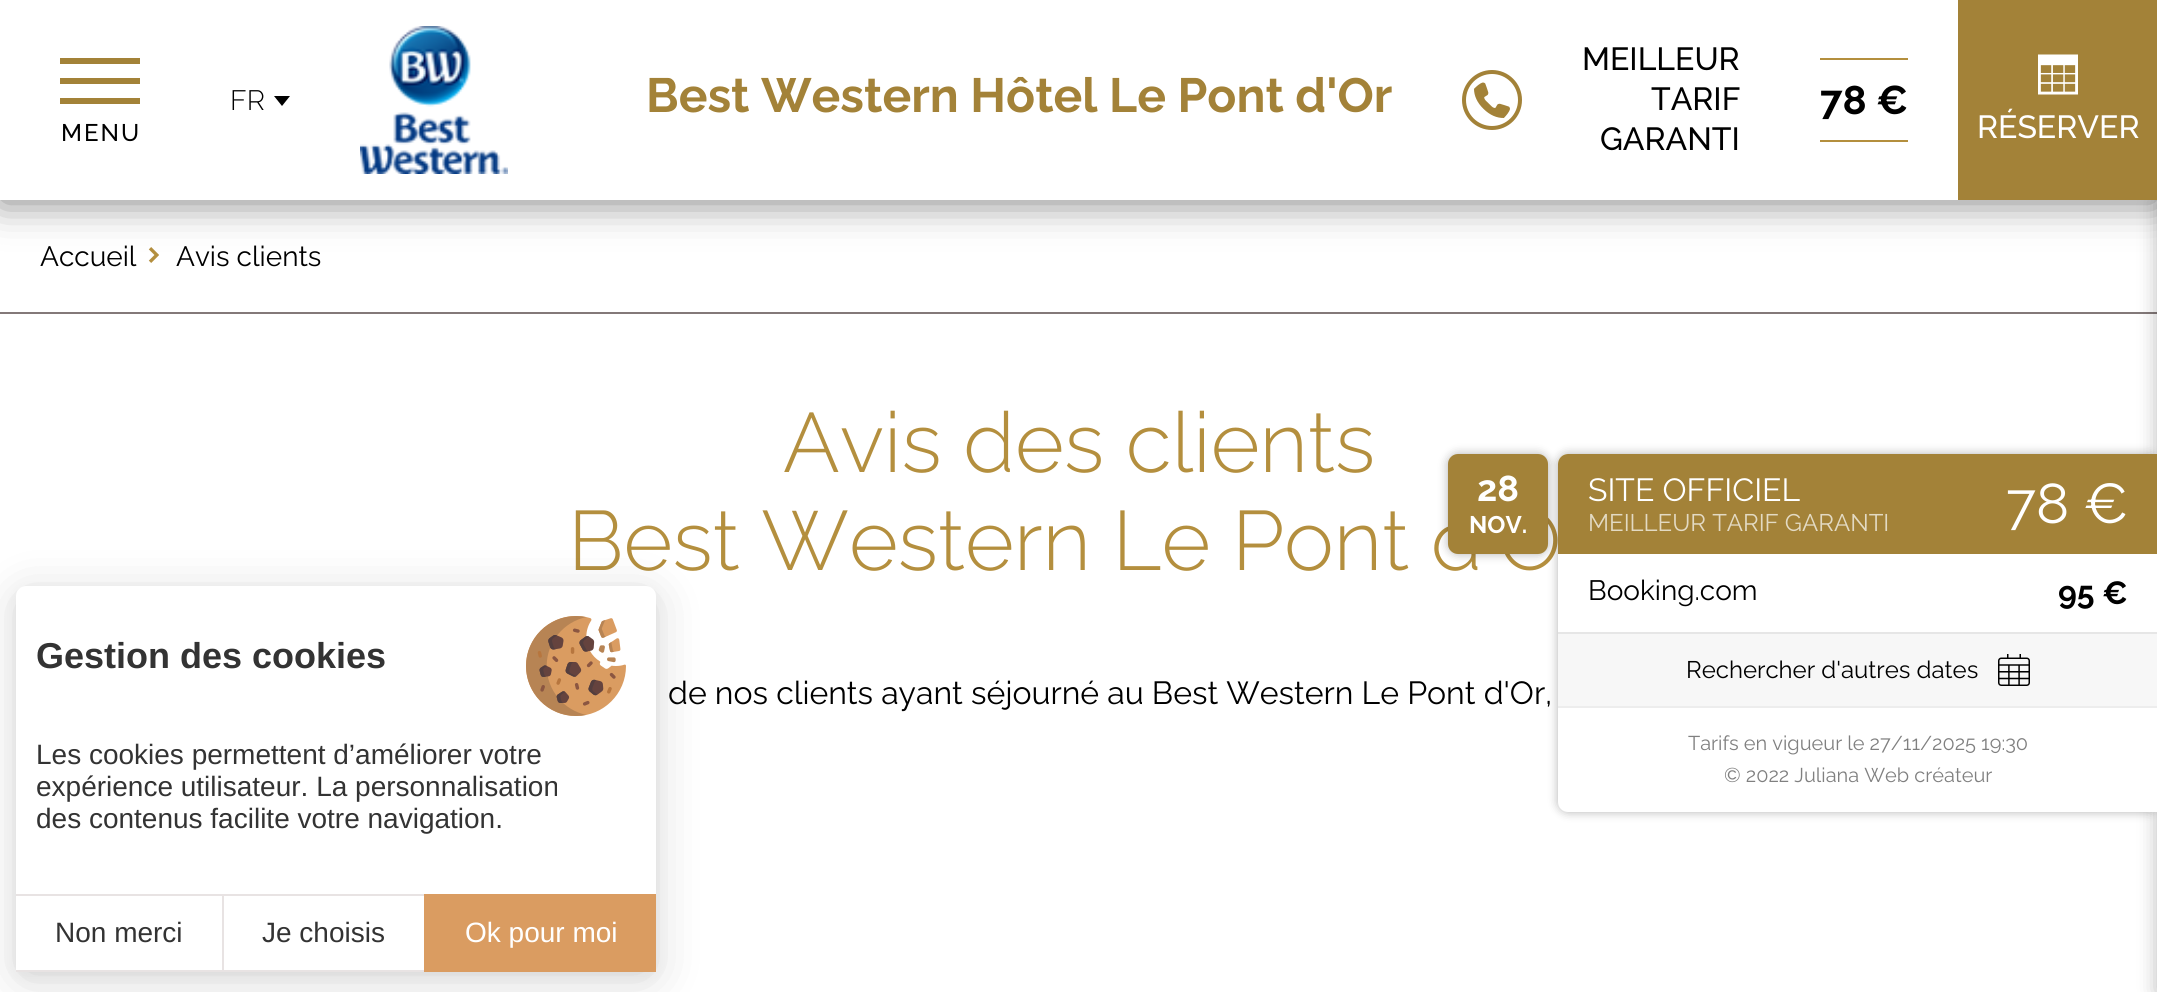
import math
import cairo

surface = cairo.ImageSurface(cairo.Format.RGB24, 2157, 992)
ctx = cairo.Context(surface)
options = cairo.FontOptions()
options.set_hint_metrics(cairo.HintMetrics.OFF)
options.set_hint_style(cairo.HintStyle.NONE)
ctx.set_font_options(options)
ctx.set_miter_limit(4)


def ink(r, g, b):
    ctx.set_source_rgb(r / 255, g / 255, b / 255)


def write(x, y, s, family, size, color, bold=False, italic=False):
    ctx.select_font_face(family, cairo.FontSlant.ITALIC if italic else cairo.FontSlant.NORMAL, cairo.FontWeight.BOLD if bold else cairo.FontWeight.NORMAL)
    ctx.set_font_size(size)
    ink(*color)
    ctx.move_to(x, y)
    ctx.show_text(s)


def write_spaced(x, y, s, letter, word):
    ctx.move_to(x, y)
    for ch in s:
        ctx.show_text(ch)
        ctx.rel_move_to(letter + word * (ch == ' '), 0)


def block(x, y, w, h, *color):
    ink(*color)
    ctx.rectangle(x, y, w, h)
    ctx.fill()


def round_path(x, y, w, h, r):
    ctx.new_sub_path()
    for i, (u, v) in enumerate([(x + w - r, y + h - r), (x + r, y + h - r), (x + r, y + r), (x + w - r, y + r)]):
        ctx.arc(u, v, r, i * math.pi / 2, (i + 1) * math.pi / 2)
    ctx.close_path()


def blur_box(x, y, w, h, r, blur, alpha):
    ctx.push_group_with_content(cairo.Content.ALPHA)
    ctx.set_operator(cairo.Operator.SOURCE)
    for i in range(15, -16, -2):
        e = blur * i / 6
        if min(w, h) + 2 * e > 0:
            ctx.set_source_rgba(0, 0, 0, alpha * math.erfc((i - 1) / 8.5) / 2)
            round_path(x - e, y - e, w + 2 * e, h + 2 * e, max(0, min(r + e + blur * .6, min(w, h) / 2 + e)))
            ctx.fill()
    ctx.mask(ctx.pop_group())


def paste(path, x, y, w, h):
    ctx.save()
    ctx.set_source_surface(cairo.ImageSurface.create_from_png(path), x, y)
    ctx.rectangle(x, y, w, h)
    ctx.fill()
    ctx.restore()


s1 = dict(family="Raleway Light", size=28, color=(0, 0, 0))
s2 = dict(family="Raleway", size=48, color=(163, 130, 56), bold=True)
s3 = dict(family="Raleway Medium", size=32, color=(0, 0, 0))
s4 = dict(family="Raleway", size=40, color=(0, 0, 0), bold=True)
s5 = dict(family="Raleway Medium", size=32, color=(255, 255, 255))
s6 = dict(family="Raleway", size=28, color=(0, 0, 0))
s7 = dict(family="Raleway Light", size=84, color=(180, 143, 62))
s8 = dict(family="Raleway", size=32, color=(0, 0, 0))
s9 = dict(family="Raleway", size=36, color=(255, 255, 255), bold=True)
s10 = dict(family="Raleway", size=24, color=(255, 255, 255), bold=True)
s11 = dict(family="Raleway", size=32, color=(255, 255, 255))
s12 = dict(family="Raleway", size=24, color=(227, 218, 195))
s13 = dict(family="Raleway", size=56, color=(255, 255, 255))
s14 = dict(family="Raleway", size=32, color=(0, 0, 0), bold=True)
s15 = dict(family="Raleway", size=24, color=(0, 0, 0))
s16 = dict(family="Raleway", size=20, color=(128, 128, 128))
s17 = dict(family="Liberation Sans", size=36, color=(51, 51, 51), bold=True)
s18 = dict(family="Liberation Sans", size=28, color=(51, 51, 51))
s19 = dict(family="Liberation Sans", size=28, color=(255, 255, 255))

ink(255, 255, 255)
ctx.paint()
paste("pic4.png", 148, 247, 11, 16)
ink(0, 0, 0)
blur_box(0, 2, 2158, 200, 0, 20, 0.5)
block(0, 0, 1958, 200, 255, 255, 255)
write(230, 110, "FR", **s1)
ctx.new_path()
ctx.move_to(282, 106)
ctx.line_to(274, 96)
ctx.line_to(290, 96)
ctx.close_path()
ctx.fill()
paste("pic1.png", 360, 26, 148, 148)
block(60, 58, 80, 6, 163, 130, 56)
block(60, 78, 80, 6, 163, 130, 56)
block(60, 98, 80, 6, 163, 130, 56)
ctx.select_font_face("Raleway Medium")
ctx.set_font_size(24)
ink(0, 0, 0)
write_spaced(61, 141, "MENU", 2, 0)
write(646, 112, "Best Western Hôtel Le Pont d'Or", **s2)
ctx.new_path()
ctx.arc(1492, 100, 28, 0, 2 * math.pi)
ctx.set_line_width(4)
ctx.stroke()
paste("pic2.png", 1474, 82, 36, 36)
write(1582, 70, "MEILLEUR", **s3)
write(1651, 110, "TARIF", **s3)
write(1600, 150, "GARANTI", **s3)
block(1820, 58, 88, 2, 180, 143, 62)
block(1820, 140, 88, 2, 180, 143, 62)
write(1820, 114, "78 €", **s4)
block(0, 312, 2157, 2, 131, 121, 121)
ink(0, 0, 0)
blur_box(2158, 200, 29, 792, 0, 10, 0.3)
block(1958, 0, 199, 200, 163, 130, 56)
paste("pic3.png", 2038, 54, 40, 41)
write(1977, 138, "RÉSERVER", **s5)
write(40, 266, "Accueil", **s6)
write(176, 266, "Avis clients", **s6)
write(783, 472, "Avis des clients", **s7)
write(568, 570, "Best Western Le Pont d'O", **s7)
write(668, 704, "de nos clients ayant séjourné au Best Western Le Pont d'Or,", **s8)
ink(0, 0, 0)
blur_box(1558, 454, 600, 358, 10, 5, 0.3)
ink(255, 255, 255)
ctx.new_path()
ctx.move_to(1568, 454)
ctx.line_to(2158, 454)
ctx.line_to(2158, 812)
ctx.line_to(1568, 812)
ctx.curve_to(1562.5, 812, 1558, 807.5, 1558, 802)
ctx.line_to(1558, 464)
ctx.curve_to(1558, 458.5, 1562.5, 454, 1568, 454)
ctx.close_path()
ctx.fill()
ink(163, 130, 56)
ctx.new_path()
ctx.move_to(1568, 454)
ctx.line_to(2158, 454)
ctx.line_to(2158, 554)
ctx.line_to(1558, 554)
ctx.line_to(1558, 464)
ctx.curve_to(1558, 458.5, 1562.5, 454, 1568, 454)
ctx.close_path()
ctx.fill()
ink(0, 0, 0)
blur_box(1448, 454, 100, 100, 10, 5, 0.3)
ink(163, 130, 56)
round_path(1448, 454, 100, 100, 10)
ctx.fill()
write(1477, 501, "28", **s9)
write(1469, 533, "NOV.", **s10)
write(1588, 501, "SITE OFFICIEL", **s11)
write(1588, 531, "MEILLEUR TARIF GARANTI", **s12)
write(2006, 523, "78 €", **s13)
write(1588, 600, "Booking.com", **s6)
write(2058, 604, "95 €", **s14)
block(1558, 634, 599, 72, 247, 247, 247)
block(1558, 632, 599, 2, 230, 230, 230)
write(1686, 678, "Rechercher d'autres dates", **s15)
paste("pic5.png", 1998, 654, 32, 32)
block(1558, 706, 599, 2, 237, 237, 237)
write(1688, 750, "Tarifs en vigueur le 27/11/2025 19:30", **s16)
write(1724, 782, "© 2022 Juliana Web créateur", **s16)
ink(0, 0, 0)
blur_box(16, 590, 640, 386, 10, 6, 0.05)
blur_box(16, 594, 640, 386, 10, 24, 0.15)
ink(255, 255, 255)
ctx.new_path()
ctx.move_to(26, 586)
ctx.line_to(646, 586)
ctx.curve_to(651.5, 586, 656, 590.5, 656, 596)
ctx.line_to(656, 972)
ctx.line_to(16, 972)
ctx.line_to(16, 596)
ctx.curve_to(16, 590.5, 20.5, 586, 26, 586)
ctx.close_path()
ctx.fill()
paste("pic6.png", 526, 616, 100, 100)
write(36, 668, "Gestion des cookies", **s17)
write(36, 764, "Les cookies permettent d’améliorer votre", **s18)
write(36, 796, "expérience utilisateur. La personnalisation", **s18)
write(36, 828, "des contenus facilite votre navigation.", **s18)
block(16, 894, 408, 2, 232, 227, 227)
block(16, 970, 408, 2, 232, 227, 227)
write(55, 942, "Non merci", **s18)
block(222, 894, 2, 78, 232, 227, 227)
write(262, 942, "Je choisis", **s18)
block(424, 894, 232, 78, 218, 156, 97)
write(465, 942, "Ok pour moi", **s19)
surface.write_to_png("screenshot.png")
